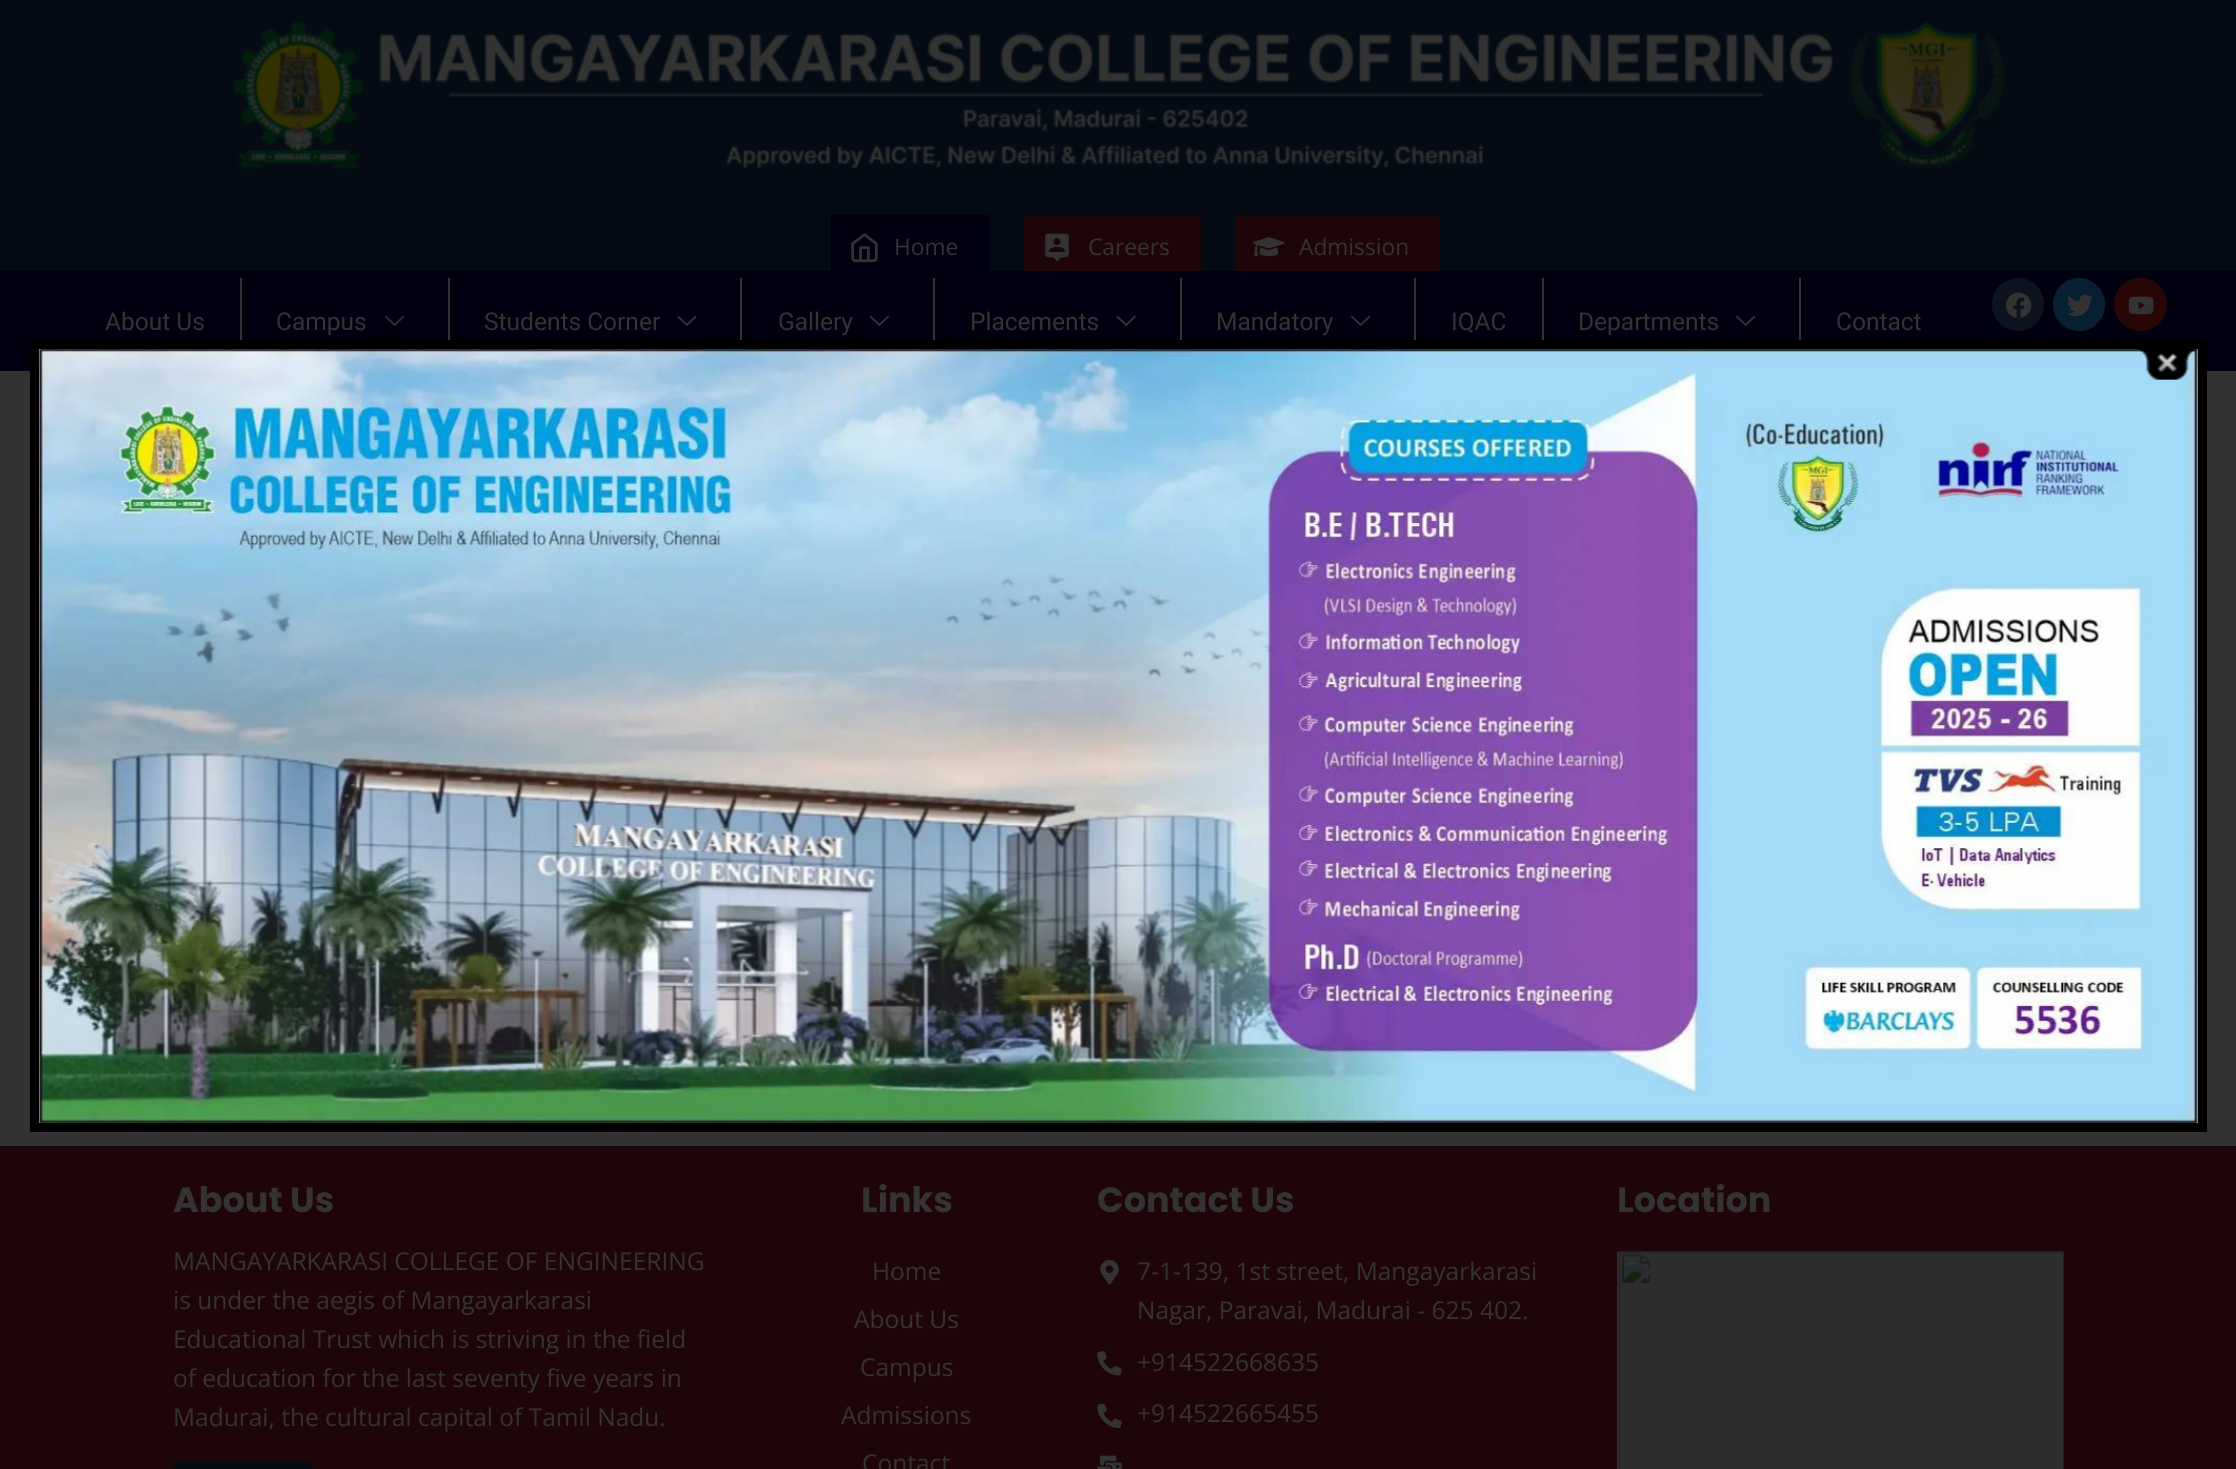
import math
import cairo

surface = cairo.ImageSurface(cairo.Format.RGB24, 2236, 1469)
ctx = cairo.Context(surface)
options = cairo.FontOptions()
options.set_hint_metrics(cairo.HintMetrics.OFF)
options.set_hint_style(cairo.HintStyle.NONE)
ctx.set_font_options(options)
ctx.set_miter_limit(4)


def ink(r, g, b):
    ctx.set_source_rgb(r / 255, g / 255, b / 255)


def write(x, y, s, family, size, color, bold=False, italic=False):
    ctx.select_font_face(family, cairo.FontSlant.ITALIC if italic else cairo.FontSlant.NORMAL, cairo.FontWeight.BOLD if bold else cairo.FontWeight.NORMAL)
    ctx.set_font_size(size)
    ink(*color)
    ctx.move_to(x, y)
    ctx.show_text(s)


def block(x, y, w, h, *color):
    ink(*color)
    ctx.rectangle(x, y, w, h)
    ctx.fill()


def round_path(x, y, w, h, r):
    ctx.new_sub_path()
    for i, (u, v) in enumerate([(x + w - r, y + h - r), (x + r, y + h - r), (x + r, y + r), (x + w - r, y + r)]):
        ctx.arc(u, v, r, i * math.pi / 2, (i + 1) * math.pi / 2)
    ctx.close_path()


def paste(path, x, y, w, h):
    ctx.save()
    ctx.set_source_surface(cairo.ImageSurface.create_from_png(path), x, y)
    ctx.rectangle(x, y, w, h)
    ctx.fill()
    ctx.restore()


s1 = dict(family="Open Sans", size=22.75, color=(51, 51, 51))
s2 = dict(family="Roboto", size=24.5, color=(51, 51, 51))
s3 = dict(family="Poppins", size=35, color=(51, 51, 51), bold=True)
s4 = dict(family="Open Sans", size=24.5, color=(51, 51, 51))

ink(51, 51, 51)
ctx.paint()
block(0, 0, 2236, 271, 5, 11, 20)
paste("pic1.png", 232, 20, 1773, 149)
block(831, 215, 158, 56, 0, 0, 16)
paste("pic2.png", 851, 233, 27, 30)
write(894, 255, "Home", **s1)
block(1024, 215, 177, 56, 29, 5, 9)
paste("pic3.png", 1045, 233, 24, 28)
write(1088, 255, "Careers", **s1)
block(1236, 215, 204, 56, 29, 5, 9)
paste("pic4.png", 1253, 237, 32, 20)
write(1299, 255, "Admission", **s1)
block(0, 271, 2236, 100, 0, 0, 16)
block(240, 278, 2, 62, 51, 51, 51)
write(105, 330, "About Us", **s2)
block(448, 278, 2, 62, 51, 51, 51)
write(276, 330, "Campus", **s2)
paste("pic5.png", 385, 315, 20, 11)
block(740, 278, 2, 62, 51, 51, 51)
write(484, 330, "Students Corner", **s2)
paste("pic6.png", 677, 315, 20, 11)
block(933, 278, 2, 62, 51, 51, 51)
write(778, 330, "Gallery", **s2)
paste("pic7.png", 869, 315, 20, 11)
block(1180, 278, 2, 62, 51, 51, 51)
write(970, 330, "Placements", **s2)
paste("pic8.png", 1116, 315, 20, 11)
block(1414, 278, 2, 62, 51, 51, 51)
write(1216, 330, "Mandatory", **s2)
paste("pic5.png", 1351, 315, 20, 11)
block(1542, 278, 2, 62, 51, 51, 51)
write(1451, 330, "IQAC", **s2)
block(1799, 278, 2, 62, 51, 51, 51)
write(1578, 330, "Departments", **s2)
paste("pic5.png", 1736, 315, 20, 11)
write(1836, 330, "Contact", **s2)
ink(12, 18, 30)
round_path(1992, 278, 52, 53, 26)
ctx.fill()
paste("pic9.png", 2006, 292, 26, 26)
ink(6, 32, 48)
round_path(2053, 278, 52, 53, 26)
ctx.fill()
paste("pic10.png", 2067, 294, 26, 22)
ink(41, 6, 6)
ctx.arc(2140.5, 304.5, 26.5, 0, 2 * math.pi)
ctx.fill()
paste("pic11.png", 2128, 296, 26, 19)
paste("pic12.png", 39, 349, 2159, 774)
ctx.rectangle(34.5, 344.5, 2168, 783)
ink(0, 0, 0)
ctx.set_line_width(9)
ctx.stroke()
paste("pic13.png", 2135, 349, 63, 31)
block(0, 1146, 2236, 323, 29, 5, 9)
write(173, 1212, "About Us", **s3)
write(173, 1270, "MANGAYARKARASI COLLEGE OF ENGINEERING", **s4)
write(173, 1309, "is under the aegis of Mangayarkarasi", **s4)
write(173, 1348, "Educational Trust which is striving in the field", **s4)
write(173, 1387, "of education for the last seventy five years in", **s4)
write(173, 1426, "Madurai, the cultural capital of Tamil Nadu.", **s4)
ink(5, 11, 20)
round_path(173, 1461, 139, 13, 5)
ctx.fill()
write(861, 1212, "Links", **s3)
write(872, 1280, "Home", **s4)
write(854, 1328, "About Us", **s4)
write(860, 1376, "Campus", **s4)
write(841, 1424, "Admissions", **s4)
write(862, 1472, "Contact", **s4)
write(1097, 1212, "Contact Us", **s3)
paste("pic14.png", 1100, 1260, 19, 25)
write(1137, 1280, "7-1-139, 1st street, Mangayarkarasi", **s4)
write(1137, 1319, "Nagar, Paravai, Madurai - 625 402.", **s4)
paste("pic15.png", 1097, 1351, 25, 25)
write(1137, 1371, "+914522668635", **s4)
paste("pic16.png", 1097, 1404, 25, 24)
write(1137, 1422, "+914522665455", **s4)
paste("pic17.png", 1097, 1455, 25, 14)
write(1617, 1212, "Location", **s3)
paste("pic18.png", 1617, 1251, 447, 218)
surface.write_to_png("screenshot.png")
